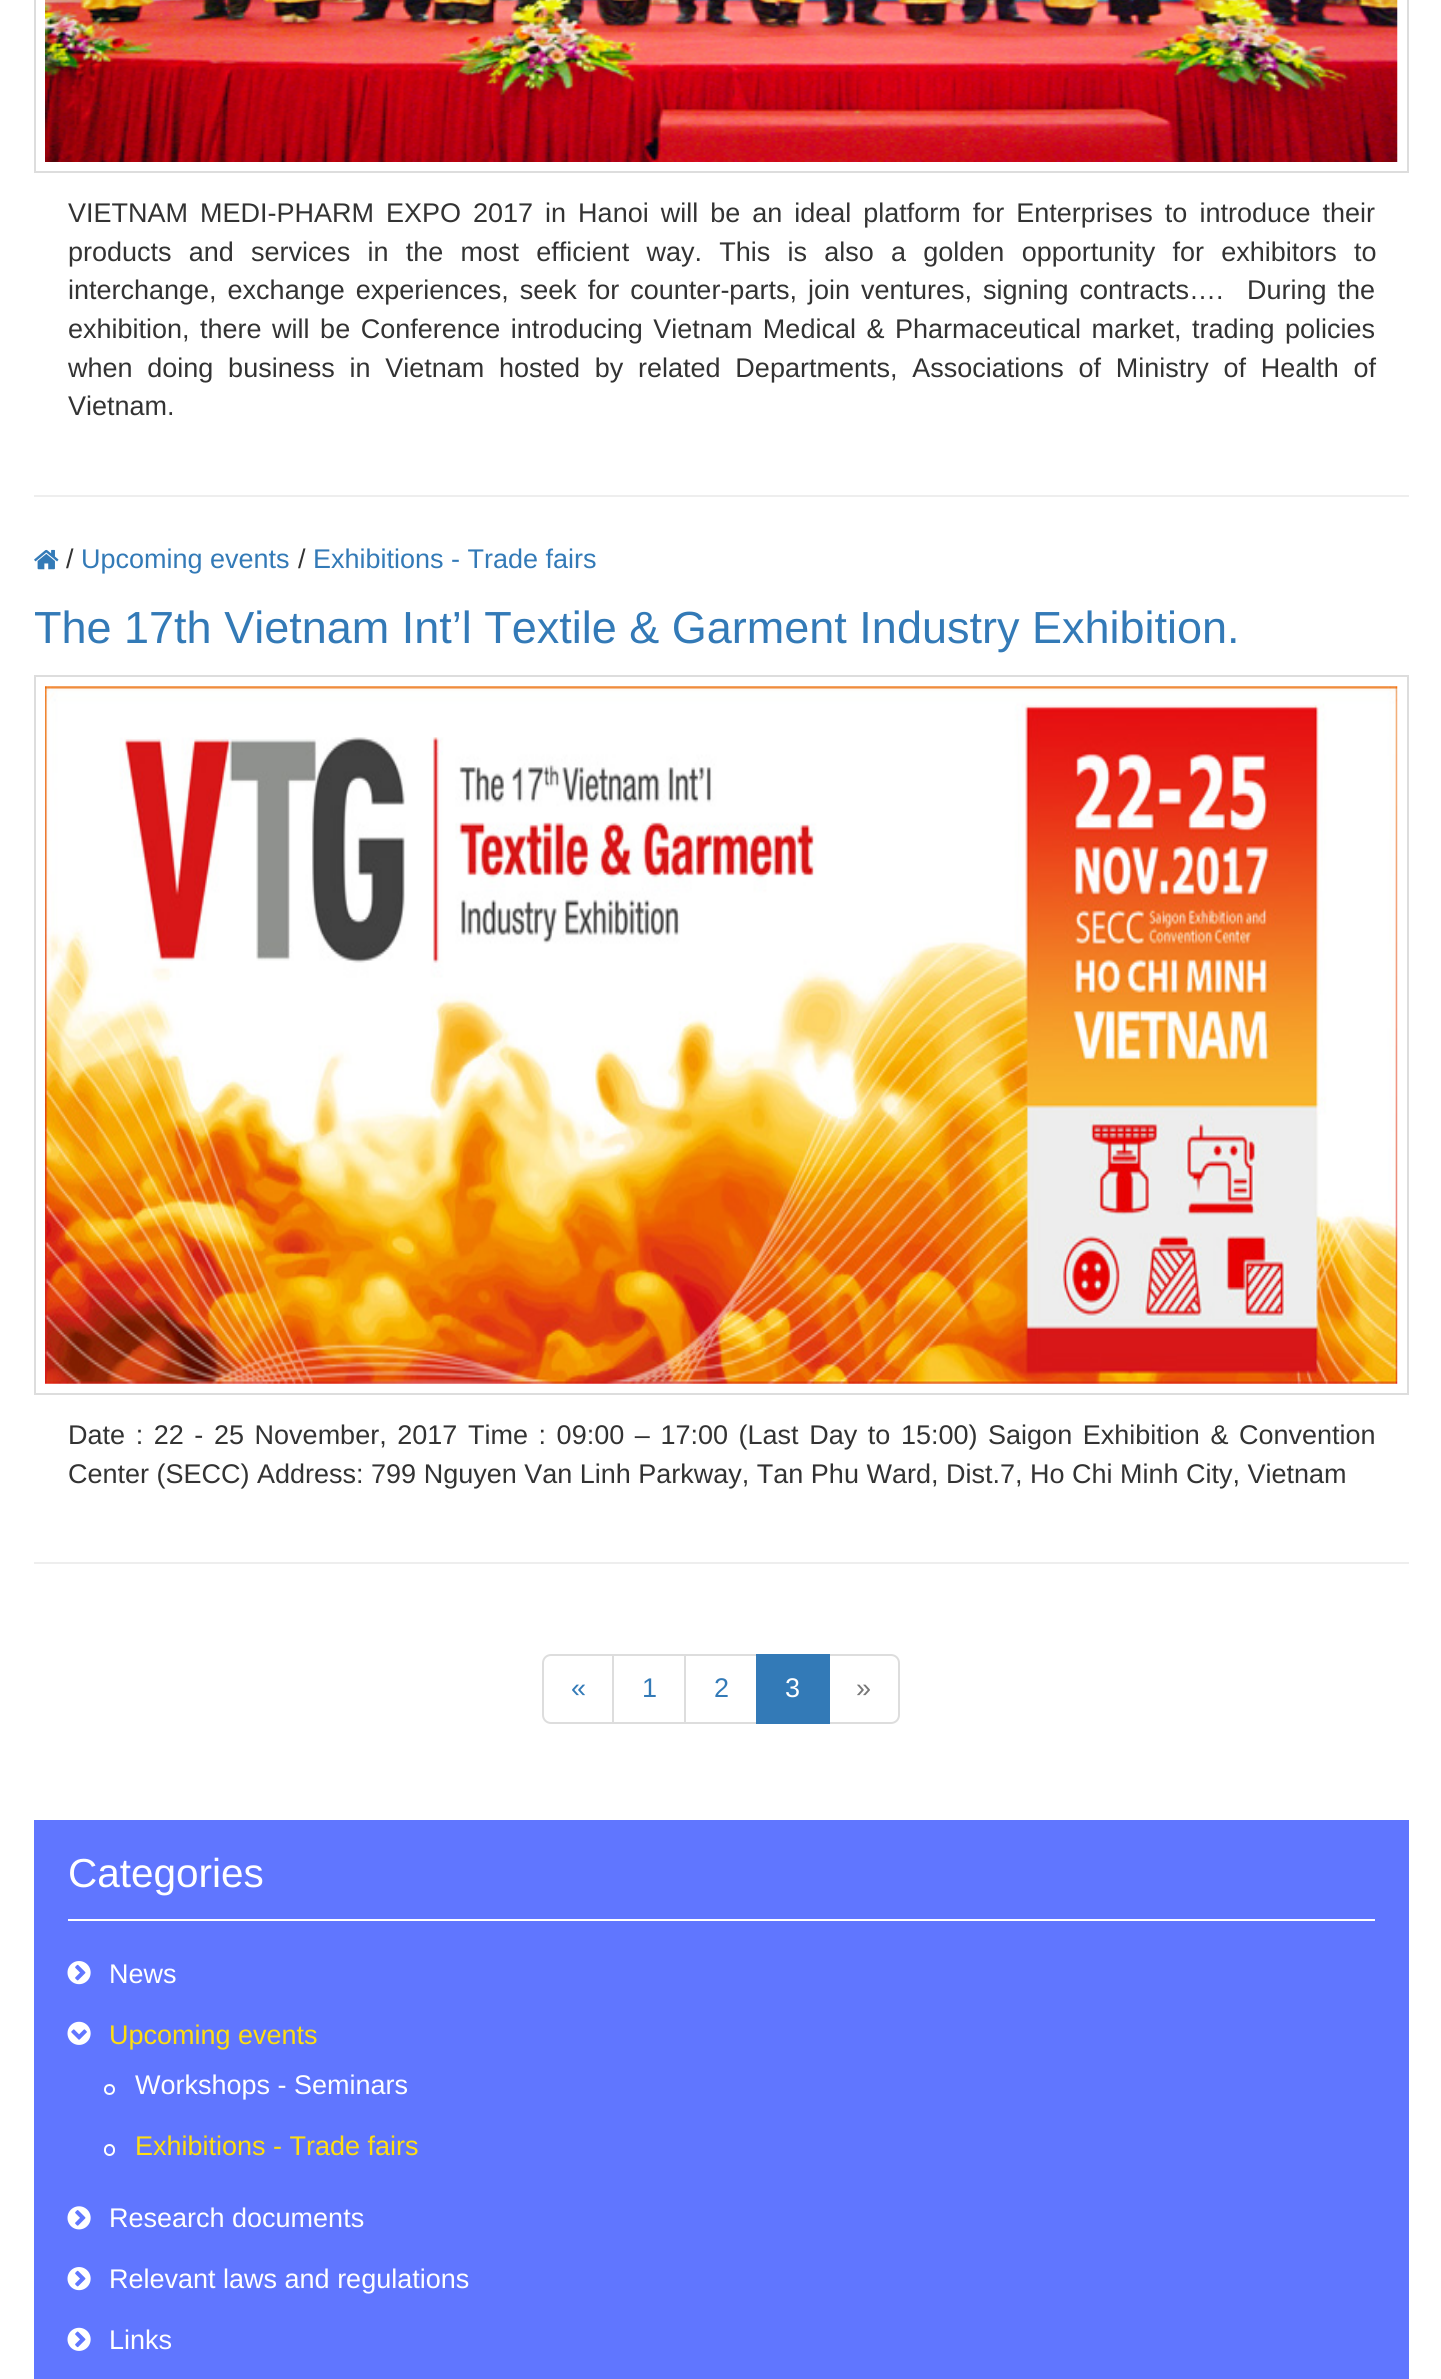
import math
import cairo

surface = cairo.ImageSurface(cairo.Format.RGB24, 1441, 2379)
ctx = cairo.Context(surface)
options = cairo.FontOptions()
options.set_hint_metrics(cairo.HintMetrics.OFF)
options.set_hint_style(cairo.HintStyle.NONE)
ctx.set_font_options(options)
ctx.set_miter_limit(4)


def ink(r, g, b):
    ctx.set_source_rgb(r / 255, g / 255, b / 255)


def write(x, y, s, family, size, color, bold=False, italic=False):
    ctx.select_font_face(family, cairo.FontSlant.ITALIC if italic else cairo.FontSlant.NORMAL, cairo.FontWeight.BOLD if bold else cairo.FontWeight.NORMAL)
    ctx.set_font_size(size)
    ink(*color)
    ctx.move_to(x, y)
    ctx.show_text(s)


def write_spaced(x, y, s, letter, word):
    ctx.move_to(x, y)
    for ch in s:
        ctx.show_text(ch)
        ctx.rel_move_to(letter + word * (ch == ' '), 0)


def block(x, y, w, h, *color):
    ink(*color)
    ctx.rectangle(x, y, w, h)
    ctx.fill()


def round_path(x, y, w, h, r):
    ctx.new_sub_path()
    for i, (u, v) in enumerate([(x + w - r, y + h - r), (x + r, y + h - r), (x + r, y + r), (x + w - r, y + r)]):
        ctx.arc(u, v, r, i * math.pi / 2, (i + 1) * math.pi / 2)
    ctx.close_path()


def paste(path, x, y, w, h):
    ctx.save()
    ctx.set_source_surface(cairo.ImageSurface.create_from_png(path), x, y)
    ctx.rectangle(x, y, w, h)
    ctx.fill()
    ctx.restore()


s1 = dict(family="Liberation Sans", size=27, color=(51, 51, 51))
s2 = dict(family="Liberation Sans", size=27, color=(51, 122, 183))
s3 = dict(family="Liberation Sans", size=45, color=(51, 122, 183))
s4 = dict(family="Liberation Sans", size=27, color=(255, 255, 255))
s5 = dict(family="Liberation Sans", size=27, color=(119, 119, 119))
s6 = dict(family="Liberation Sans", size=40.5, color=(255, 255, 255))
s7 = dict(family="Liberation Sans", size=27, color=(255, 221, 17))

ink(255, 255, 255)
ctx.paint()
block(34, 495, 1375, 2, 238, 238, 238)
ctx.rectangle(35, -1, 1373, 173)
ink(221, 221, 221)
ctx.stroke()
paste("pic1.png", 45, 0, 1353, 162)
ctx.select_font_face("Liberation Sans")
ctx.set_font_size(27)
ink(51, 51, 51)
write_spaced(68, 222, "VIETNAM MEDI-PHARM EXPO 2017 in Hanoi will be an ideal platform for Enterprises to introduce their", 0, 4.5)
write_spaced(68, 261, "products and services in the most efficient way. This is also a golden opportunity for exhibitors to", 0, 9.75)
write_spaced(68, 299, "interchange, exchange experiences, seek for counter-parts, join ventures, signing contracts….", 0, 3.5)
write_spaced(1247, 299, "During the", 0, 3.5)
write_spaced(68, 338, "exhibition, there will be Conference introducing Vietnam Medical & Pharmaceutical market, trading policies", 0, 3)
write_spaced(68, 377, "when doing business in Vietnam hosted by related Departments, Associations of Ministry of Health of", 0, 7.25)
write(68, 415, "Vietnam.", **s1)
block(34, 1562, 1375, 2, 238, 238, 238)
paste("pic2.png", 34, 549, 25, 21)
write(66, 568, "/", **s1)
write(81, 568, "Upcoming events", **s2)
write(298, 568, "/", **s1)
write(313, 568, "Exhibitions - Trade fairs", **s2)
write(34, 643, "The 17th Vietnam Int’l Textile & Garment Industry Exhibition.", **s3)
ctx.rectangle(35, 676, 1373, 718)
ink(221, 221, 221)
ctx.stroke()
paste("pic3.png", 45, 686, 1353, 698)
ctx.set_font_size(27)
ink(51, 51, 51)
write_spaced(68, 1444, "Date : 22 - 25 November, 2017 Time : 09:00 – 17:00 (Last Day to 15:00) Saigon Exhibition & Convention", 0, 3.1)
write(68, 1483, "Center (SECC) Address: 799 Nguyen Van Linh Parkway, Tan Phu Ward, Dist.7, Ho Chi Minh City, Vietnam", **s1)
ctx.new_path()
ctx.move_to(551, 1655)
ctx.line_to(613, 1655)
ctx.line_to(613, 1723)
ctx.line_to(551, 1723)
ctx.curve_to(546.5, 1723, 543, 1719.5, 543, 1715)
ctx.line_to(543, 1663)
ctx.curve_to(543, 1658.5, 546.5, 1655, 551, 1655)
ctx.close_path()
ink(221, 221, 221)
ctx.stroke()
write(571, 1697, "«", **s2)
ctx.rectangle(613, 1655, 72, 68)
ink(221, 221, 221)
ctx.stroke()
write(642, 1697, "1", **s2)
ctx.rectangle(685, 1655, 72, 68)
ink(221, 221, 221)
ctx.stroke()
write(714, 1697, "2", **s2)
ctx.new_path()
ctx.move_to(829, 1655)
ctx.line_to(891, 1655)
ctx.curve_to(895.5, 1655, 899, 1658.5, 899, 1663)
ctx.line_to(899, 1715)
ctx.curve_to(899, 1719.5, 895.5, 1723, 891, 1723)
ctx.line_to(829, 1723)
ctx.close_path()
ink(221, 221, 221)
ctx.stroke()
block(756, 1654, 74, 70, 51, 122, 183)
write(785, 1697, "3", **s4)
write(856, 1697, "»", **s5)
block(34, 1820, 1375, 559, 96, 118, 255)
block(68, 1919, 1307, 2, 255, 255, 255)
write(68, 1887, "Categories", **s6)
paste("pic4.png", 67, 1961, 24, 24)
write(109, 1983, "News", **s4)
paste("pic5.png", 67, 2021, 24, 24)
write(109, 2044, "Upcoming events", **s7)
ctx.new_path()
ctx.arc(109.5, 2089.5, 4.5, 0, 2 * math.pi)
ink(255, 255, 255)
ctx.stroke()
write(135, 2094, "Workshops - Seminars", **s4)
round_path(105, 2145, 9, 10, 4.5)
ctx.stroke()
write(135, 2155, "Exhibitions - Trade fairs", **s7)
paste("pic6.png", 67, 2206, 24, 24)
write(109, 2227, "Research documents", **s4)
paste("pic4.png", 67, 2267, 24, 24)
write(109, 2288, "Relevant laws and regulations", **s4)
paste("pic7.png", 67, 2327, 24, 24)
write(109, 2349, "Links", **s4)
surface.write_to_png("screenshot.png")
